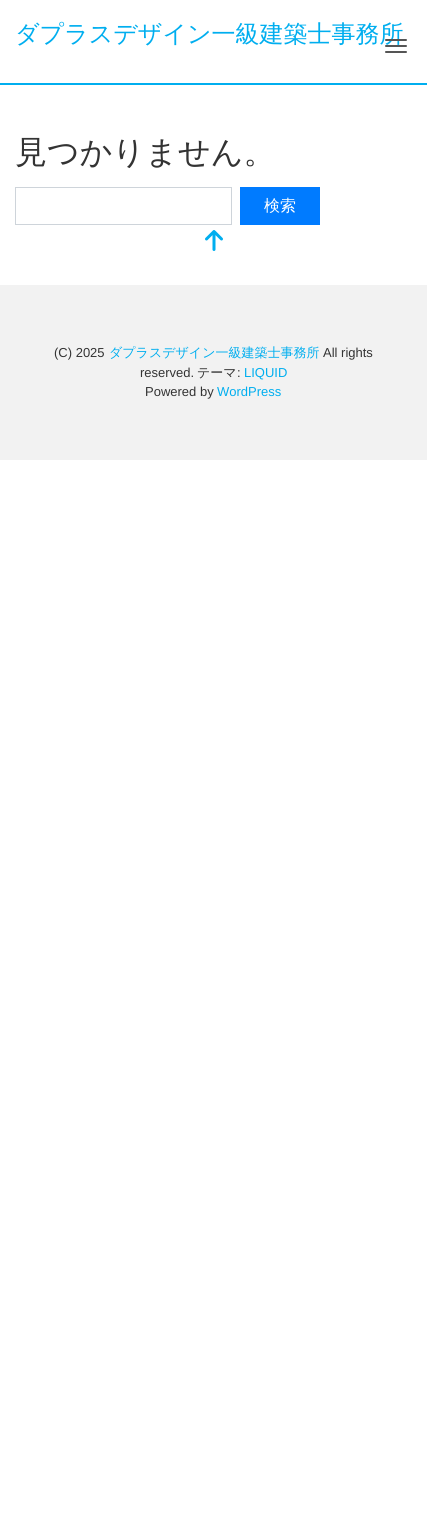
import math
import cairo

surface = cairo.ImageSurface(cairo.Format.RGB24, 427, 1531)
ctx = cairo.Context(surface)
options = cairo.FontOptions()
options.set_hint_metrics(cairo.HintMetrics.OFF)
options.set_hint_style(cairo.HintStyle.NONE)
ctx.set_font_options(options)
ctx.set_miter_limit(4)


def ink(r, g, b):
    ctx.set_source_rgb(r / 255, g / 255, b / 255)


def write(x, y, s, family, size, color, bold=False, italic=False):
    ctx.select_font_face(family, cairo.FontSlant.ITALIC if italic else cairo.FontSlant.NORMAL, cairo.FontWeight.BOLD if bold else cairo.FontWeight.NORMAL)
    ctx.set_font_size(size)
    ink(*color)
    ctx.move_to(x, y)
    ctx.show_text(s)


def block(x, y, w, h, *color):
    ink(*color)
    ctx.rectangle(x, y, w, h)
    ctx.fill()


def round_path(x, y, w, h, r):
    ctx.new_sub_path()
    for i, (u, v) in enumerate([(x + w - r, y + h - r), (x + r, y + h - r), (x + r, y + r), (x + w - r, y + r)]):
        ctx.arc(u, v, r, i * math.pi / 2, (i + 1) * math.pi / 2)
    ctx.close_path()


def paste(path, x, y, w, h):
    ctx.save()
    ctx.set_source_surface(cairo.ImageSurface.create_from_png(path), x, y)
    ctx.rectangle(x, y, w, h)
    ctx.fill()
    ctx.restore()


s1 = dict(family="WenQuanYi Zen Hei Medium", size=24, color=(0, 174, 239))
s2 = dict(family="WenQuanYi Zen Hei Medium", size=32, color=(51, 51, 51))
s3 = dict(family="WenQuanYi Zen Hei Medium", size=16, color=(255, 255, 255))
s4 = dict(family="Liberation Sans", size=13, color=(51, 51, 51))
s5 = dict(family="WenQuanYi Zen Hei Medium", size=13, color=(0, 174, 239))
s6 = dict(family="WenQuanYi Zen Hei Medium", size=13, color=(51, 51, 51))
s7 = dict(family="Liberation Sans", size=13, color=(0, 174, 239))

ink(255, 255, 255)
ctx.paint()
write(15, 42, "ダプラスデザイン一級建築士事務所", **s1)
block(0, 83, 427, 2, 0, 174, 239)
ink(85, 85, 85)
round_path(385, 39, 22, 2, 1)
ctx.fill()
round_path(385, 45, 22, 2, 1)
ctx.fill()
round_path(385, 51, 22, 2, 1)
ctx.fill()
write(15, 163, "見つかりません。", **s2)
ctx.rectangle(15.5, 187.5, 216, 37)
ink(206, 212, 218)
ctx.set_line_width(1)
ctx.stroke()
block(240, 187, 80, 38, 0, 123, 255)
write(264, 211, "検索", **s3)
paste("pic1.png", 205, 230, 18, 21)
block(0, 285, 427, 175, 242, 242, 242)
write(54, 357, "(C) 2025", **s4)
write(109, 357, "ダプラスデザイン一級建築士事務所", **s5)
write(323, 357, "All rights", **s4)
write(140, 377, "reserved.", **s4)
write(197, 377, "テーマ", **s6)
write(237, 377, ":", **s4)
write(244, 377, "LIQUID", **s7)
write(145, 396, "Powered by", **s4)
write(217, 396, "WordPress", **s7)
surface.write_to_png("screenshot.png")
